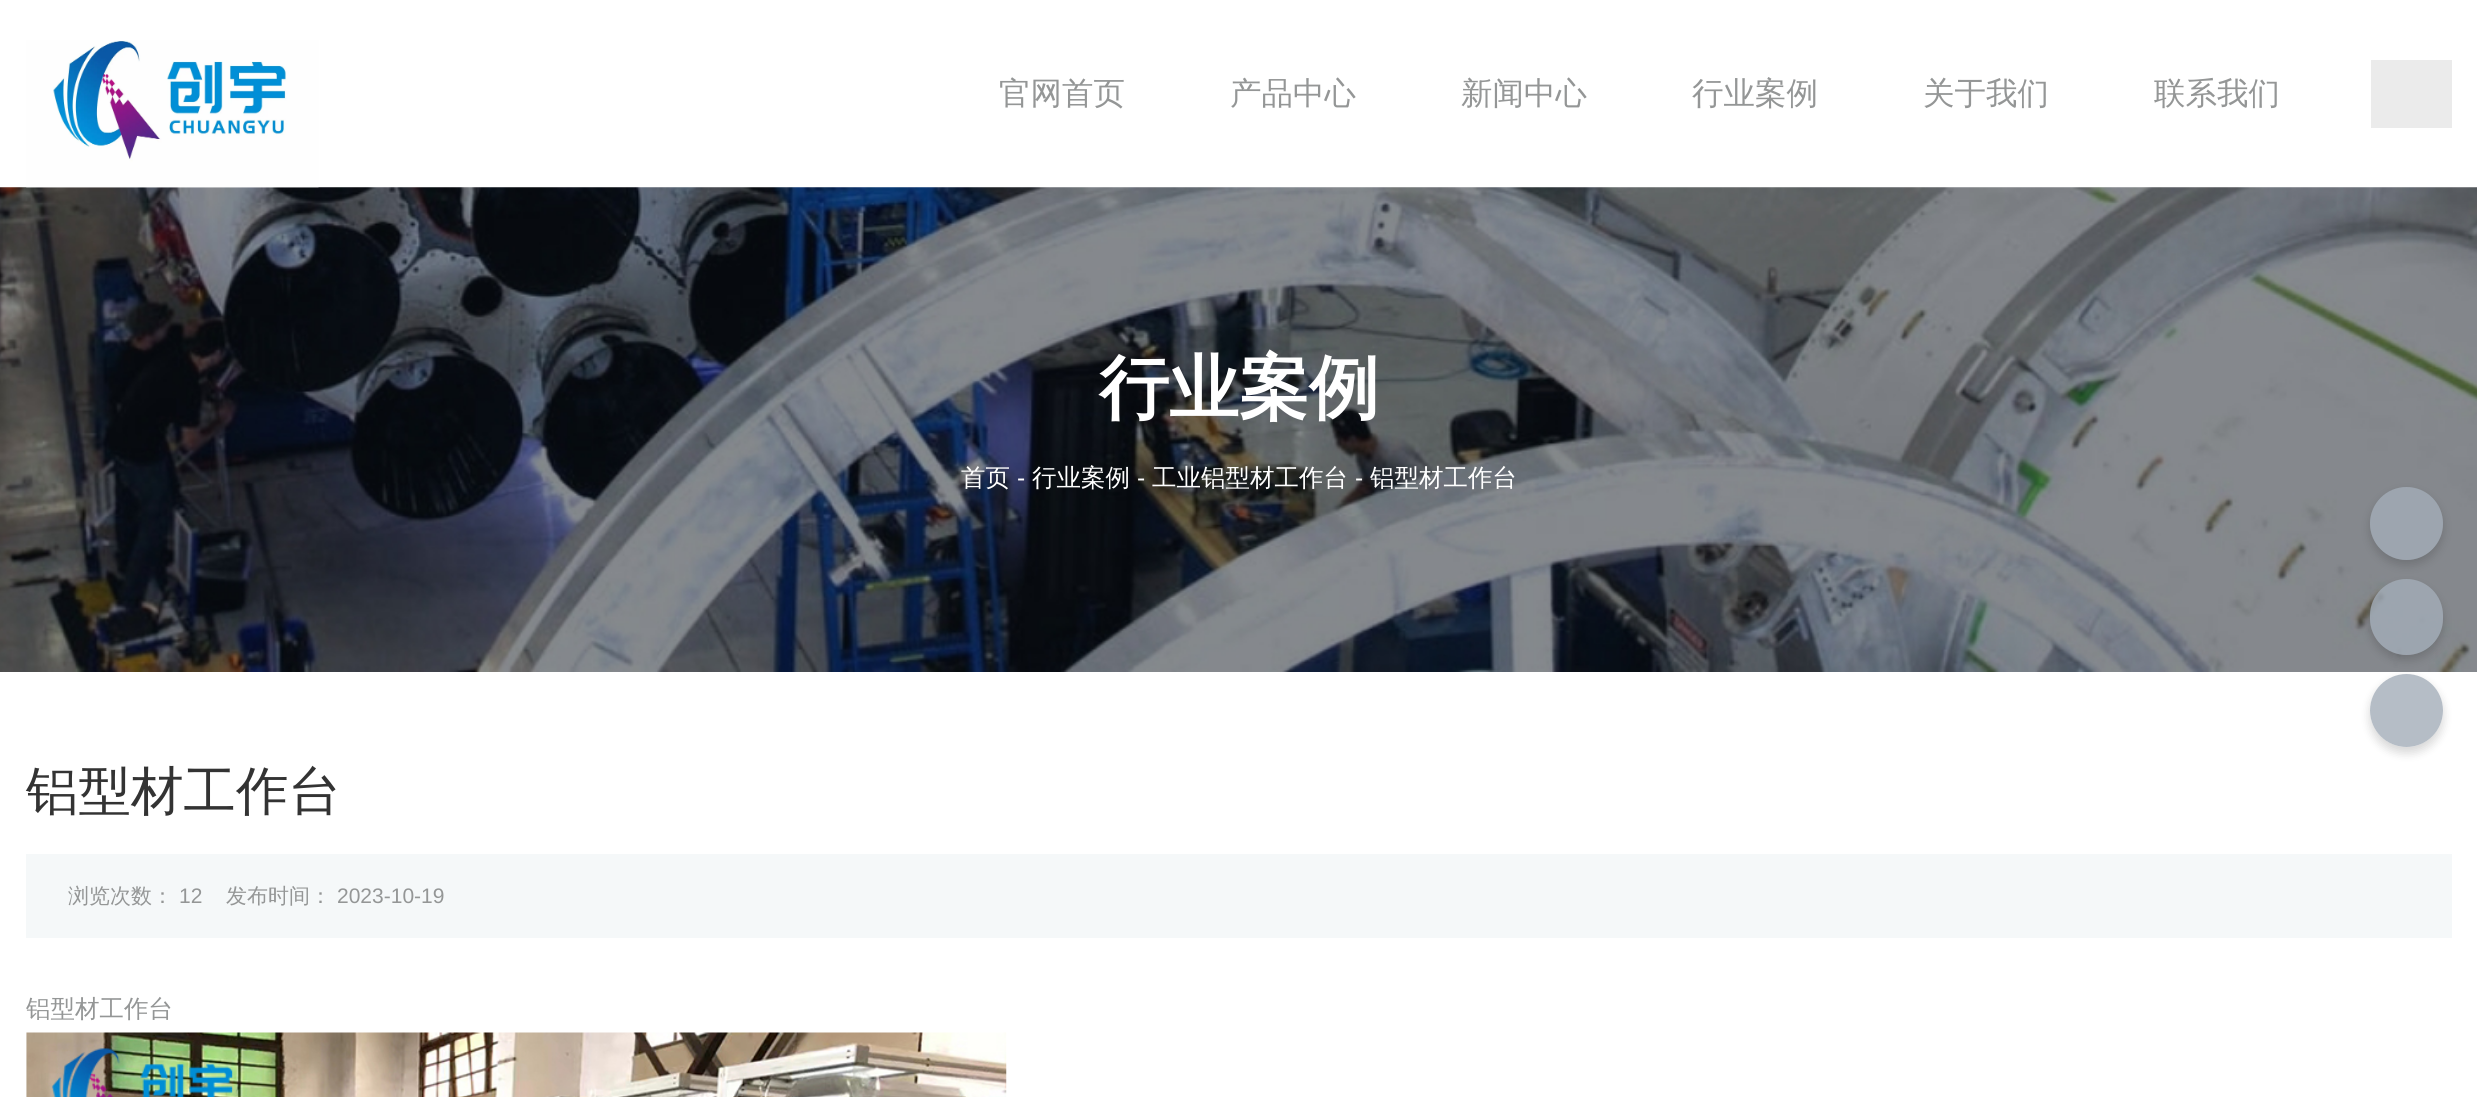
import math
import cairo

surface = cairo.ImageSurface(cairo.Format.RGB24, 2477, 1097)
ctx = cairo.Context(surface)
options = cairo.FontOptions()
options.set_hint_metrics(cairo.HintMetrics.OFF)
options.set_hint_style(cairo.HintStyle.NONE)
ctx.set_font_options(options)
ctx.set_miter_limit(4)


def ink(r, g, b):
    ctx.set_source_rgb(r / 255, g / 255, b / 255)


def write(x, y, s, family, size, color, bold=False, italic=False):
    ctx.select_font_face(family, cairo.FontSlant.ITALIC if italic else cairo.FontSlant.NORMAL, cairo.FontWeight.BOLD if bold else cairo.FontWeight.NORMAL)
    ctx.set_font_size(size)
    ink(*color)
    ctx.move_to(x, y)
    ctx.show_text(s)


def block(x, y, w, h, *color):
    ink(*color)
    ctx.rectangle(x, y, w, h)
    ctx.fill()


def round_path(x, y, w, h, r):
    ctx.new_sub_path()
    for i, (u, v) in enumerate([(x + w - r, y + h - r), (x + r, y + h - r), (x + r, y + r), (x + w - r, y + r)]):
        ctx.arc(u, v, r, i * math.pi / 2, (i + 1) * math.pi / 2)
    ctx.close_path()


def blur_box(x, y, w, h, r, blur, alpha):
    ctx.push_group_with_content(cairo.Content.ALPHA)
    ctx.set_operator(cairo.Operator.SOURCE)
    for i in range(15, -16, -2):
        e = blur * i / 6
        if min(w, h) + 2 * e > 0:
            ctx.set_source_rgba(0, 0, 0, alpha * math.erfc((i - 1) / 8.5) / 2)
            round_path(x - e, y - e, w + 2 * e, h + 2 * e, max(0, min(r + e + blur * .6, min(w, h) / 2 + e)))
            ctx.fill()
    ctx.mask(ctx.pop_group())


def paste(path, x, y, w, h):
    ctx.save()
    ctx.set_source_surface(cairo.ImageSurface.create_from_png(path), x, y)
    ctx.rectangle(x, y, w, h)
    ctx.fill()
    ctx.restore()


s1 = dict(family="WenQuanYi Zen Hei Medium", size=31.5, color=(148, 150, 150))
s2 = dict(family="WenQuanYi Zen Hei", size=70, color=(255, 255, 255), bold=True)
s3 = dict(family="WenQuanYi Zen Hei Medium", size=24.5, color=(255, 255, 255))
s4 = dict(family="Liberation Sans", size=24.5, color=(255, 255, 255))
s5 = dict(family="WenQuanYi Zen Hei Medium", size=52.5, color=(51, 51, 51))
s6 = dict(family="WenQuanYi Zen Hei Medium", size=21, color=(148, 150, 150))
s7 = dict(family="Liberation Sans", size=21, color=(148, 150, 150))
s8 = dict(family="WenQuanYi Zen Hei Medium", size=24.5, color=(148, 150, 150))

ink(255, 255, 255)
ctx.paint()
paste("pic2.png", 0, 187, 2477, 485)
paste("pic1.png", 26, 40, 293, 148)
write(999, 104, "官网首页", **s1)
write(1230, 104, "产品中心", **s1)
write(1461, 104, "新闻中心", **s1)
write(1692, 104, "行业案例", **s1)
write(1923, 104, "关于我们", **s1)
write(2154, 104, "联系我们", **s1)
block(2371, 60, 81, 68, 235, 235, 235)
write(1099, 412, "行业案例", **s2)
write(961, 486, "首页", **s3)
write(1017, 486, "-", **s4)
write(1032, 486, "行业案例", **s3)
write(1137, 486, "-", **s4)
write(1152, 486, "工业铝型材工作台", **s3)
write(1355, 486, "-", **s4)
write(1370, 486, "铝型材工作台", **s3)
ctx.save()
ctx.set_fill_rule(cairo.FillRule.EVEN_ODD)
ctx.new_path()
ctx.move_to(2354, 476)
ctx.line_to(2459, 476)
ctx.line_to(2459, 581)
ctx.line_to(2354, 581)
ctx.close_path()
ctx.move_to(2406.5, 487)
ctx.curve_to(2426.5, 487, 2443, 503.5, 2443, 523.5)
ctx.curve_to(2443, 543.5, 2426.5, 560, 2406.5, 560)
ctx.curve_to(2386.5, 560, 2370, 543.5, 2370, 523.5)
ctx.curve_to(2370, 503.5, 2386.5, 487, 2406.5, 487)
ctx.close_path()
ctx.clip()
ink(0, 0, 0)
blur_box(2370, 492, 73, 73, 36.5, 5, 0.16)
ctx.restore()
ctx.set_source_rgba(0.639, 0.675, 0.718, 0.8)
ctx.arc(2406.5, 523.5, 36.5, 0, 2 * math.pi)
ctx.fill()
ctx.save()
ctx.set_fill_rule(cairo.FillRule.EVEN_ODD)
ctx.new_path()
ctx.move_to(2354, 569)
ctx.line_to(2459, 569)
ctx.line_to(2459, 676)
ctx.line_to(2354, 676)
ctx.close_path()
ctx.move_to(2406.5, 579)
ctx.curve_to(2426.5, 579, 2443, 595.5, 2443, 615.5)
ctx.line_to(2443, 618.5)
ctx.curve_to(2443, 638.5, 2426.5, 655, 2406.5, 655)
ctx.curve_to(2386.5, 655, 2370, 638.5, 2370, 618.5)
ctx.line_to(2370, 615.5)
ctx.curve_to(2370, 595.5, 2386.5, 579, 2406.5, 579)
ctx.close_path()
ctx.clip()
ink(0, 0, 0)
blur_box(2370, 585, 73, 75, 36.5, 5, 0.16)
ctx.restore()
round_path(2370, 579, 73, 76, 36.5)
ctx.fill()
ctx.save()
ctx.set_fill_rule(cairo.FillRule.EVEN_ODD)
ctx.new_path()
ctx.move_to(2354, 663)
ctx.line_to(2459, 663)
ctx.line_to(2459, 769)
ctx.line_to(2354, 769)
ctx.close_path()
ctx.move_to(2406.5, 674)
ctx.curve_to(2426.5, 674, 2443, 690.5, 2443, 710.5)
ctx.curve_to(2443, 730.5, 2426.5, 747, 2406.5, 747)
ctx.curve_to(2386.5, 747, 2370, 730.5, 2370, 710.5)
ctx.curve_to(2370, 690.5, 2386.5, 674, 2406.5, 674)
ctx.close_path()
ctx.clip()
ink(0, 0, 0)
blur_box(2370, 679, 73, 74, 36.5, 5, 0.16)
ctx.restore()
ctx.arc(2406.5, 710.5, 36.5, 0, 2 * math.pi)
ctx.fill()
write(26, 809, "铝型材工作台", **s5)
block(26, 854, 2426, 84, 245, 248, 249)
write(68, 903, "浏览次数：", **s6)
write(179, 903, "12", **s7)
write(226, 903, "发布时间：", **s6)
write(337, 903, "2023-10-19", **s7)
write(26, 1017, "铝型材工作台", **s8)
paste("pic3.png", 26, 1032, 981, 65)
surface.write_to_png("screenshot.png")
